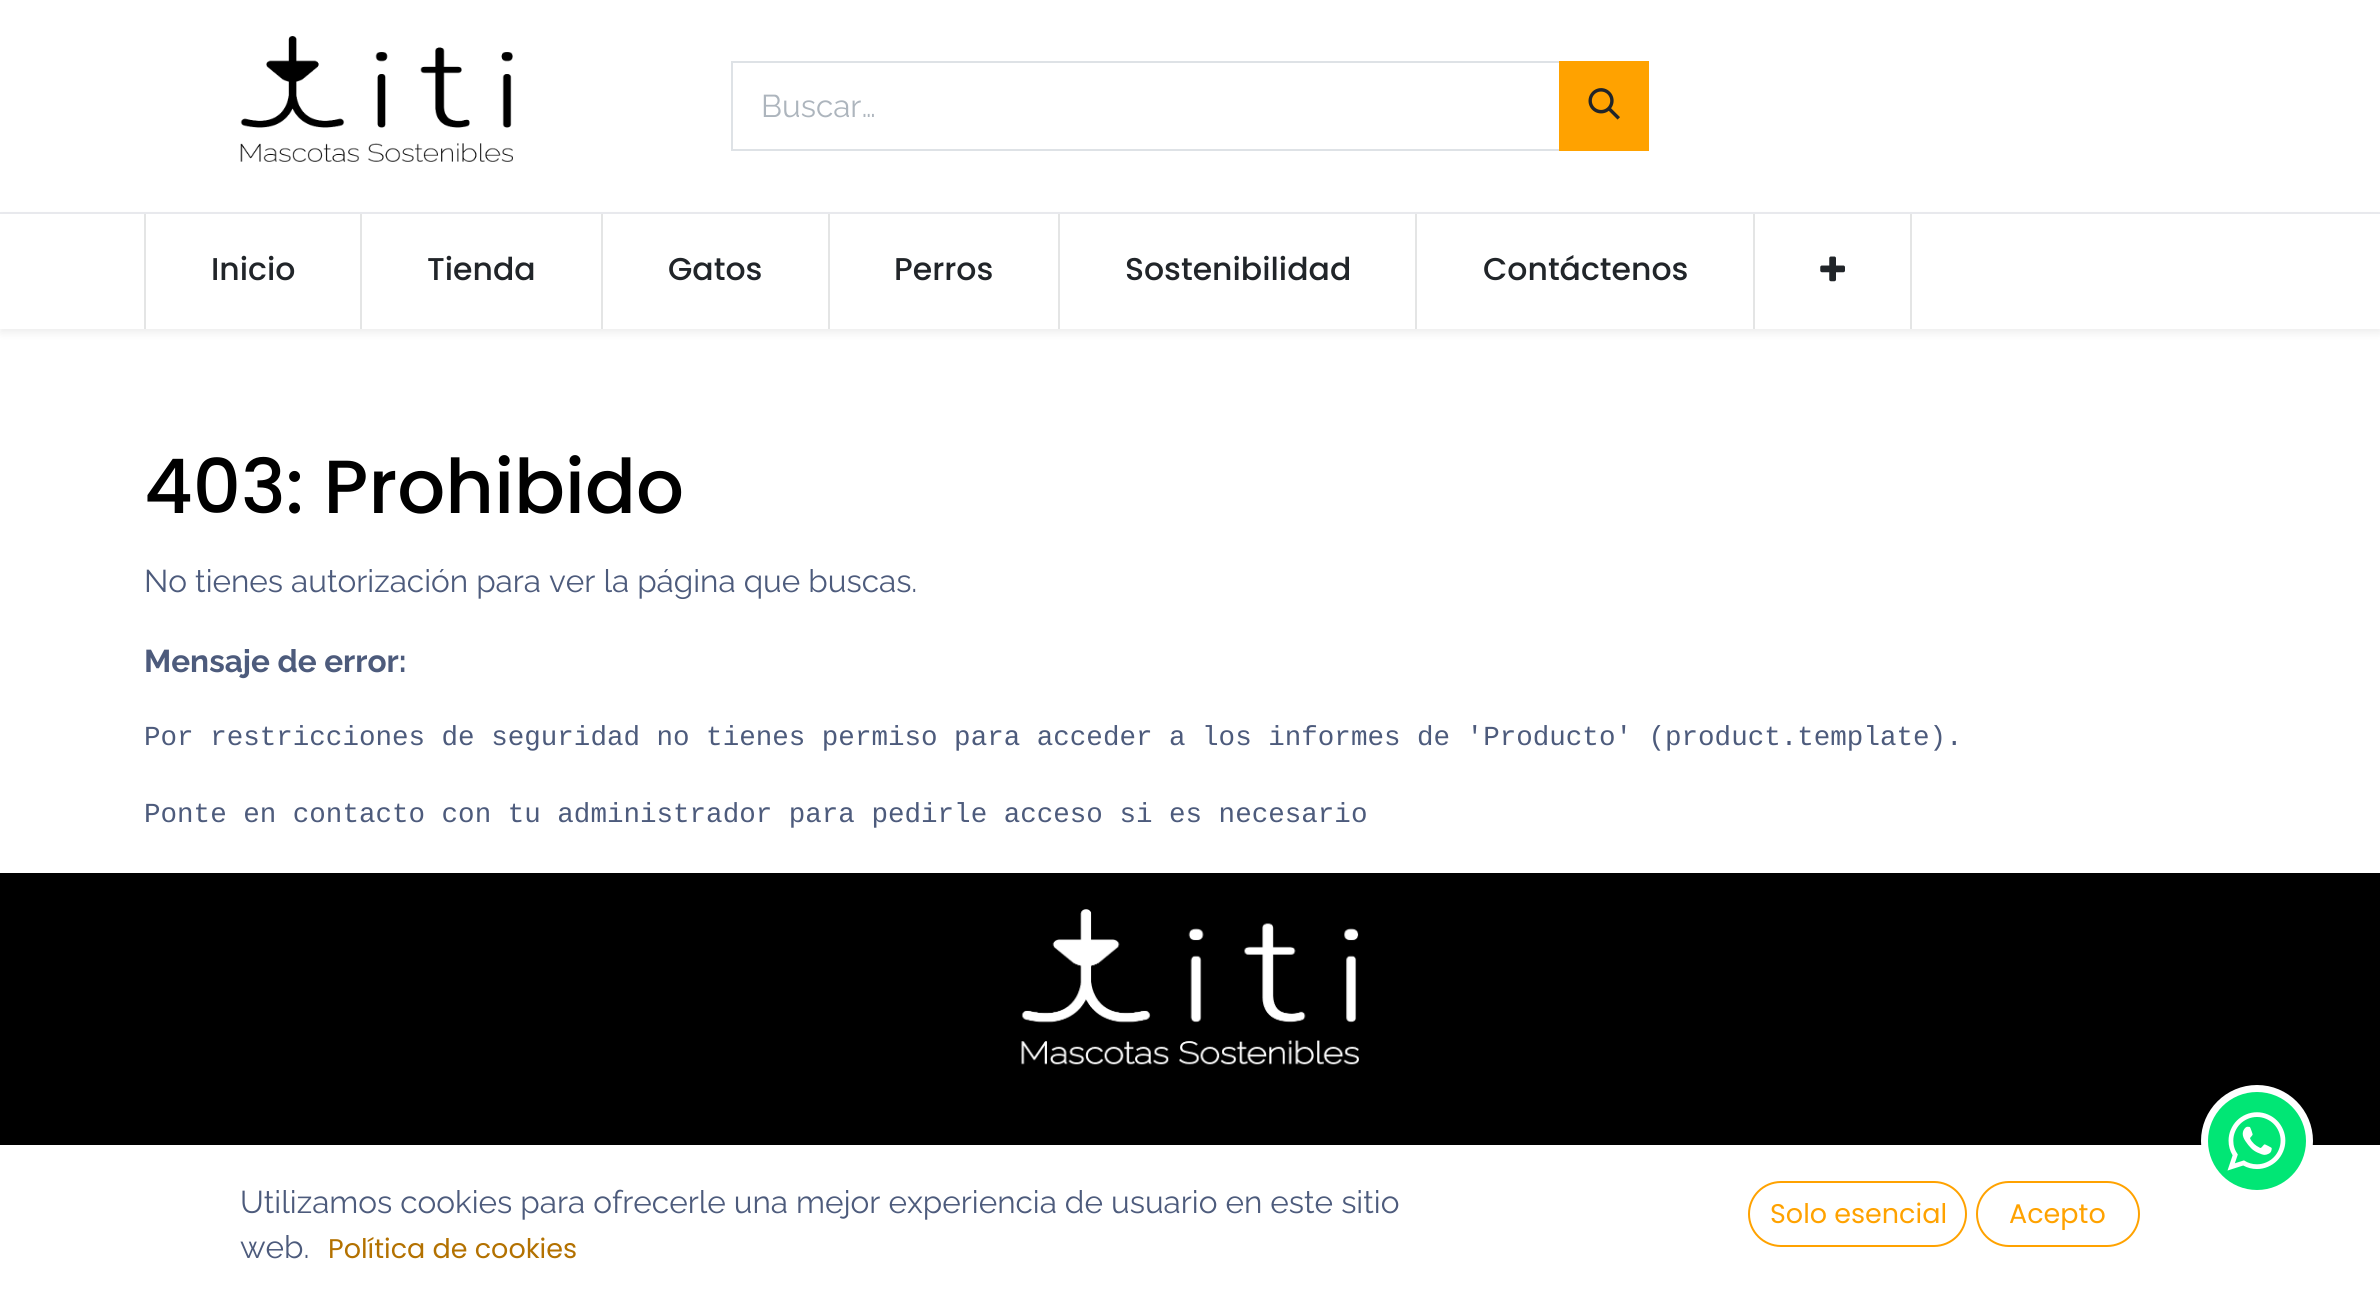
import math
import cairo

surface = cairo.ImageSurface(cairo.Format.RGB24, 2380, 1309)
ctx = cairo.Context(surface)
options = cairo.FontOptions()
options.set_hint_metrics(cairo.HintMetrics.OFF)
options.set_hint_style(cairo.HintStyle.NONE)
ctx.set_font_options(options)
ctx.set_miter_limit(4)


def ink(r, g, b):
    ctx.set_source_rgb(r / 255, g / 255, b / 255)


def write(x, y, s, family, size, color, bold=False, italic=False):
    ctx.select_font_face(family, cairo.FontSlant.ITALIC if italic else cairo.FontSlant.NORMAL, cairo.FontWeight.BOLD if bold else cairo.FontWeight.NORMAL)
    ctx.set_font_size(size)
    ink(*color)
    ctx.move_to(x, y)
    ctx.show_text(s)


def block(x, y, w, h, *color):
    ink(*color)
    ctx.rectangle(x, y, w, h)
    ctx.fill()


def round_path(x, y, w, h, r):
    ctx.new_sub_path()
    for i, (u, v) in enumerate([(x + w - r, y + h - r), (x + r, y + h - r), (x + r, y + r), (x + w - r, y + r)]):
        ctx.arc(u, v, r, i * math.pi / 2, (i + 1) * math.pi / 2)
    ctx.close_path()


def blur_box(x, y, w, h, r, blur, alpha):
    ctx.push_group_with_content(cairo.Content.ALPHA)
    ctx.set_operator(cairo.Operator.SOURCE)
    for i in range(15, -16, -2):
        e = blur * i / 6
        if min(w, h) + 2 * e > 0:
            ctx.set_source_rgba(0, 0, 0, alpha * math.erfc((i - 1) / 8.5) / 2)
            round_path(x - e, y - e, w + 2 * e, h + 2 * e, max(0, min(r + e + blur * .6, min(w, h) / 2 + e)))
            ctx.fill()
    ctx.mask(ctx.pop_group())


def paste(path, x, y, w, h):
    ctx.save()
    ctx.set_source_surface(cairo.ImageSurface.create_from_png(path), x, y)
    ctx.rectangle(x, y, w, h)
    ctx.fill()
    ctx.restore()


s1 = dict(family="Raleway", size=31.5, color=(173, 181, 189))
s2 = dict(family="Poppins Medium", size=31.5, color=(33, 37, 41))
s3 = dict(family="Poppins Medium", size=75.25, color=(0, 0, 0))
s4 = dict(family="Raleway", size=31.5, color=(77, 91, 124))
s5 = dict(family="Raleway", size=31.5, color=(77, 91, 124), bold=True)
s6 = dict(family="Liberation Mono", size=27.55, color=(77, 91, 124))
s7 = dict(family="Poppins", size=27, color=(179, 113, 0))
s8 = dict(family="Poppins", size=27, color=(255, 162, 0))

ink(255, 255, 255)
ctx.paint()
block(0, 212, 2380, 2, 234, 235, 239)
paste("pic1.png", 240, 36, 273, 126)
ctx.rectangle(732, 62, 829, 88)
ink(222, 226, 230)
ctx.stroke()
write(761, 117, "Buscar…", **s1)
block(1559, 61, 90, 90, 255, 162, 0)
paste("pic2.png", 1588, 88, 32, 32)
ink(0, 0, 0)
blur_box(0, 218, 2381, 115, 0, 4.5, 0.07)
block(0, 214, 2380, 115, 255, 255, 255)
block(144, 214, 2, 115, 228, 229, 229)
write(211, 280, "Inicio", **s2)
block(360, 214, 2, 115, 228, 229, 229)
write(427, 280, "Tienda", **s2)
block(601, 214, 2, 115, 228, 229, 229)
write(668, 280, "Gatos", **s2)
block(828, 214, 2, 115, 228, 229, 229)
write(894, 280, "Perros", **s2)
block(1058, 214, 2, 115, 228, 229, 229)
write(1125, 280, "Sostenibilidad", **s2)
block(1415, 214, 2, 115, 228, 229, 229)
write(1483, 280, "Contáctenos", **s2)
block(1910, 214, 2, 115, 228, 229, 229)
block(1753, 214, 2, 115, 228, 229, 229)
paste("pic3.png", 1820, 256, 25, 26)
write(144, 513, "403: Prohibido", **s3)
write(144, 592, "No tienes autorización para ver la página que buscas.", **s4)
write(144, 672, "Mensaje de error:", **s5)
write(144, 745, "Por restricciones de seguridad no tienes permiso para acceder a los informes de 'Producto' (product.template).", **s6)
write(144, 822, "Ponte en contacto con tu administrador para pedirle acceso si es necesario", **s6)
block(0, 873, 2380, 272, 0, 0, 0)
paste("pic4.png", 1021, 909, 338, 156)
write(240, 1213, "Utilizamos cookies para ofrecerle una mejor experiencia de usuario en este sitio", **s4)
write(240, 1258, "web.", **s4)
write(328, 1258, "Política de cookies", **s7)
round_path(1749, 1182, 217, 64, 32)
ink(255, 162, 0)
ctx.stroke()
write(1770, 1223, "Solo esencial", **s8)
round_path(1977, 1182, 162, 64, 32)
ctx.stroke()
write(2009, 1223, "Acepto", **s8)
ink(1, 230, 117)
ctx.new_path()
ctx.arc(2257, 1141, 52.5, 0, 2 * math.pi)
ctx.fill_preserve()
ink(255, 255, 255)
ctx.set_line_width(7)
ctx.stroke()
paste("pic5.png", 2227, 1112, 59, 59)
surface.write_to_png("screenshot.png")
